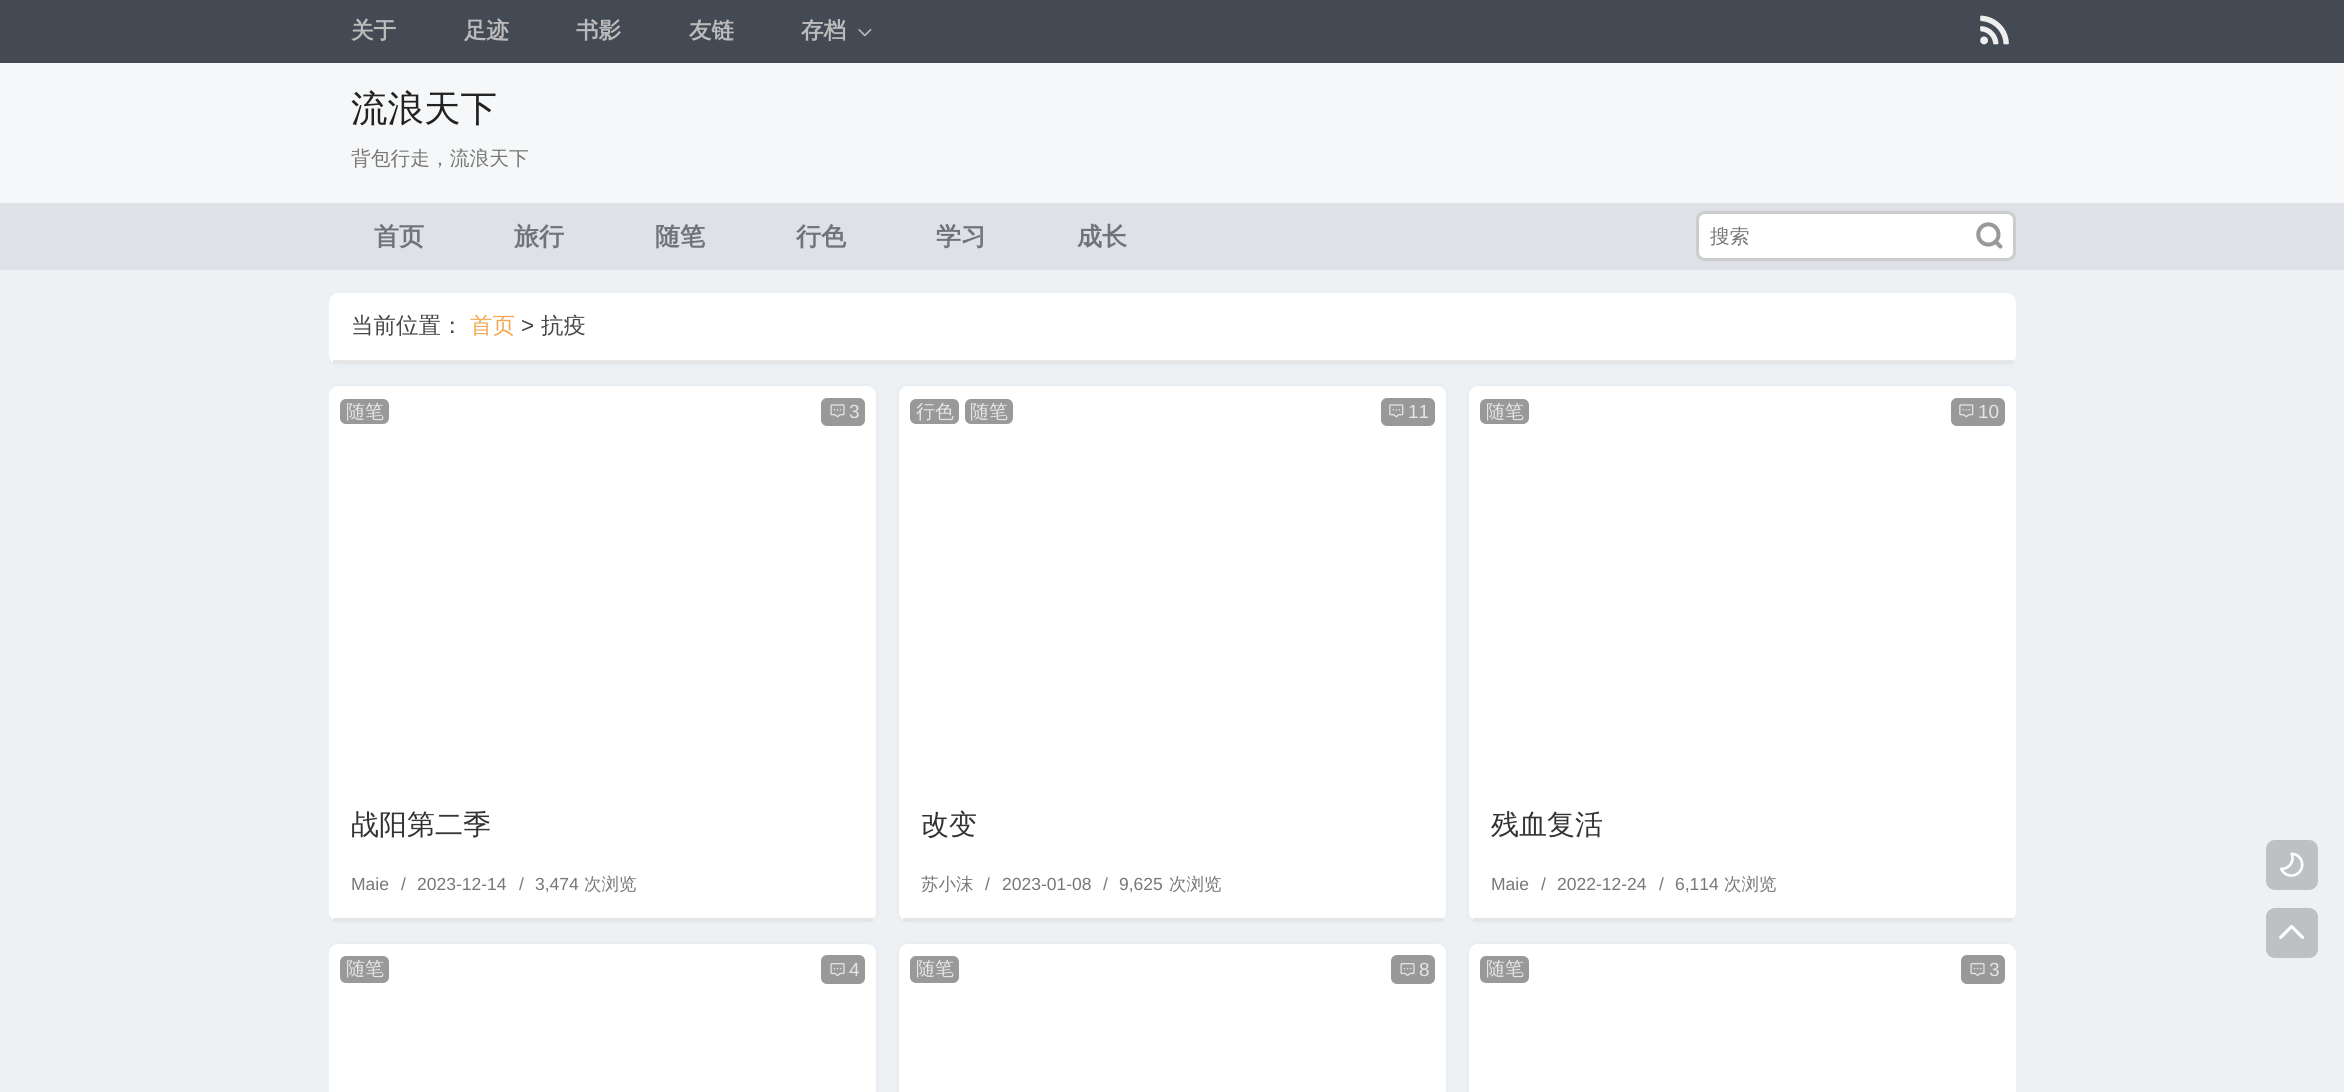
import math
import cairo

surface = cairo.ImageSurface(cairo.Format.RGB24, 2344, 1092)
ctx = cairo.Context(surface)
options = cairo.FontOptions()
options.set_hint_metrics(cairo.HintMetrics.OFF)
options.set_hint_style(cairo.HintStyle.NONE)
ctx.set_font_options(options)
ctx.set_miter_limit(4)


def ink(r, g, b):
    ctx.set_source_rgb(r / 255, g / 255, b / 255)


def write(x, y, s, family, size, color, bold=False, italic=False):
    ctx.select_font_face(family, cairo.FontSlant.ITALIC if italic else cairo.FontSlant.NORMAL, cairo.FontWeight.BOLD if bold else cairo.FontWeight.NORMAL)
    ctx.set_font_size(size)
    ink(*color)
    ctx.move_to(x, y)
    ctx.show_text(s)


def block(x, y, w, h, *color):
    ink(*color)
    ctx.rectangle(x, y, w, h)
    ctx.fill()


def round_path(x, y, w, h, r):
    ctx.new_sub_path()
    for i, (u, v) in enumerate([(x + w - r, y + h - r), (x + r, y + h - r), (x + r, y + r), (x + w - r, y + r)]):
        ctx.arc(u, v, r, i * math.pi / 2, (i + 1) * math.pi / 2)
    ctx.close_path()


def blur_box(x, y, w, h, r, blur, alpha):
    ctx.push_group_with_content(cairo.Content.ALPHA)
    ctx.set_operator(cairo.Operator.SOURCE)
    for i in range(15, -16, -2):
        e = blur * i / 6
        if min(w, h) + 2 * e > 0:
            ctx.set_source_rgba(0, 0, 0, alpha * math.erfc((i - 1) / 8.5) / 2)
            round_path(x - e, y - e, w + 2 * e, h + 2 * e, max(0, min(r + e + blur * .6, min(w, h) / 2 + e)))
            ctx.fill()
    ctx.mask(ctx.pop_group())


def paste(path, x, y, w, h):
    ctx.save()
    ctx.set_source_surface(cairo.ImageSurface.create_from_png(path), x, y)
    ctx.rectangle(x, y, w, h)
    ctx.fill()
    ctx.restore()


s1 = dict(family="WenQuanYi Zen Hei", size=22.5, color=(187, 187, 187), bold=True)
s2 = dict(family="WenQuanYi Zen Hei Medium", size=36.5, color=(34, 34, 34))
s3 = dict(family="WenQuanYi Zen Hei Medium", size=19.75, color=(119, 119, 119))
s4 = dict(family="WenQuanYi Zen Hei", size=25, color=(112, 115, 119), bold=True)
s5 = dict(family="WenQuanYi Zen Hei Medium", size=22.5, color=(68, 68, 68))
s6 = dict(family="WenQuanYi Zen Hei Medium", size=22.5, color=(245, 167, 82))
s7 = dict(family="Liberation Sans", size=22.5, color=(68, 68, 68))
s8 = dict(family="WenQuanYi Zen Hei Medium", size=19, color=(229, 229, 229))
s9 = dict(family="Liberation Sans", size=19, color=(229, 229, 229))
s10 = dict(family="WenQuanYi Zen Hei Medium", size=28, color=(51, 51, 51))
s11 = dict(family="Liberation Sans", size=17.5, color=(119, 119, 119))
s12 = dict(family="WenQuanYi Zen Hei Medium", size=17.5, color=(119, 119, 119))

ink(238, 241, 244)
ctx.paint()
block(0, 63, 2344, 140, 245, 247, 248)
block(0, 0, 2344, 63, 67, 74, 84)
write(351, 38, "关于", **s1)
write(464, 38, "足迹", **s1)
write(576, 38, "书影", **s1)
write(689, 38, "友链", **s1)
write(801, 38, "存档", **s1)
paste("pic1.png", 858, 29, 14, 8)
paste("pic2.png", 1980, 15, 29, 30)
write(351, 121, "流浪天下", **s2)
write(351, 165, "背包行走，流浪天下", **s3)
block(0, 203, 2344, 67, 222, 225, 230)
write(374, 245, "首页", **s4)
write(514, 245, "旅行", **s4)
write(655, 245, "随笔", **s4)
write(796, 245, "行色", **s4)
write(936, 245, "学习", **s4)
write(1077, 245, "成长", **s4)
ink(255, 255, 255)
round_path(1697.5, 212.5, 317, 47, 7.5)
ctx.fill_preserve()
ink(204, 204, 204)
ctx.set_line_width(3)
ctx.stroke()
write(1710, 243, "搜索", **s3)
paste("pic3.png", 1976, 222, 27, 27)
ctx.save()
ctx.rectangle(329, 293, 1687, 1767)
ctx.clip()
ink(205, 220, 230)
blur_box(329, 293, 1687, 71, 9, 2.5, 0.5)
ctx.restore()
ink(255, 255, 255)
round_path(329, 293, 1687, 71, 9)
ctx.fill()
block(333, 360, 1680, 4, 229, 229, 229)
write(351, 333, "当前位置：", **s5)
write(470, 333, "首页", **s6)
write(521, 333, ">", **s7)
write(541, 333, "抗疫", **s5)
ctx.save()
ctx.rectangle(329, 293, 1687, 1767)
ctx.clip()
ink(205, 220, 230)
blur_box(329, 386, 547, 535, 9, 2.5, 0.5)
ctx.restore()
ink(255, 255, 255)
round_path(329, 386, 547, 535, 9)
ctx.fill()
block(333, 918, 540, 4, 229, 229, 229)
ink(153, 153, 153)
round_path(340, 399, 49, 25, 6)
ctx.fill()
write(346, 418, "随笔", **s8)
ink(153, 153, 153)
round_path(821, 398, 44, 28, 6)
ctx.fill()
paste("pic4.png", 830, 404, 15, 14)
write(849, 418, "3", **s9)
write(351, 834, "战阳第二季", **s10)
write(351, 890, "Maie", **s11)
write(401, 890, "/", **s11)
write(417, 890, "2023-12-14", **s11)
write(519, 890, "/", **s11)
write(535, 890, "3,474", **s11)
write(584, 890, "次浏览", **s12)
ink(205, 220, 230)
blur_box(899, 386, 547, 535, 9, 2.5, 0.5)
ink(255, 255, 255)
round_path(899, 386, 547, 535, 9)
ctx.fill()
block(903, 918, 540, 4, 229, 229, 229)
ink(153, 153, 153)
round_path(910, 399, 49, 25, 6)
ctx.fill()
write(916, 418, "行色", **s8)
ink(153, 153, 153)
round_path(965, 399, 48, 25, 6)
ctx.fill()
write(970, 418, "随笔", **s8)
ink(153, 153, 153)
round_path(1381, 398, 54, 28, 6)
ctx.fill()
paste("pic5.png", 1389, 404, 15, 14)
write(1408, 418, "11", **s9)
write(921, 834, "改变", **s10)
write(921, 890, "苏小沫", **s12)
write(985, 890, "/", **s11)
write(1002, 890, "2023-01-08", **s11)
write(1103, 890, "/", **s11)
write(1119, 890, "9,625", **s11)
write(1169, 890, "次浏览", **s12)
ctx.save()
ctx.rectangle(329, 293, 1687, 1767)
ctx.clip()
ink(205, 220, 230)
blur_box(1469, 386, 547, 535, 9, 2.5, 0.5)
ctx.restore()
ink(255, 255, 255)
round_path(1469, 386, 547, 535, 9)
ctx.fill()
block(1473, 918, 540, 4, 229, 229, 229)
ink(153, 153, 153)
round_path(1480, 399, 49, 25, 6)
ctx.fill()
write(1486, 418, "随笔", **s8)
ink(153, 153, 153)
round_path(1951, 398, 54, 28, 6)
ctx.fill()
paste("pic5.png", 1959, 404, 15, 14)
write(1978, 418, "10", **s9)
write(1491, 834, "残血复活", **s10)
write(1491, 890, "Maie", **s11)
write(1541, 890, "/", **s11)
write(1557, 890, "2022-12-24", **s11)
write(1659, 890, "/", **s11)
write(1675, 890, "6,114", **s11)
write(1724, 890, "次浏览", **s12)
ctx.save()
ctx.rectangle(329, 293, 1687, 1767)
ctx.clip()
ink(205, 220, 230)
blur_box(329, 944, 547, 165, 9, 2.5, 0.5)
ctx.restore()
ink(255, 255, 255)
round_path(329, 944, 547, 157, 9)
ctx.fill()
ink(153, 153, 153)
round_path(340, 956, 49, 27, 6)
ctx.fill()
write(346, 975, "随笔", **s8)
ink(153, 153, 153)
round_path(821, 955, 44, 29, 6)
ctx.fill()
paste("pic6.png", 830, 963, 15, 14)
write(849, 976, "4", **s9)
ink(205, 220, 230)
blur_box(899, 944, 547, 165, 9, 2.5, 0.5)
ink(255, 255, 255)
round_path(899, 944, 547, 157, 9)
ctx.fill()
ink(153, 153, 153)
round_path(910, 956, 49, 27, 6)
ctx.fill()
write(916, 975, "随笔", **s8)
ink(153, 153, 153)
round_path(1391, 955, 44, 29, 6)
ctx.fill()
paste("pic6.png", 1400, 963, 15, 14)
write(1419, 976, "8", **s9)
ctx.save()
ctx.rectangle(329, 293, 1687, 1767)
ctx.clip()
ink(205, 220, 230)
blur_box(1469, 944, 547, 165, 9, 2.5, 0.5)
ctx.restore()
ink(255, 255, 255)
round_path(1469, 944, 547, 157, 9)
ctx.fill()
ink(153, 153, 153)
round_path(1480, 956, 49, 27, 6)
ctx.fill()
write(1486, 975, "随笔", **s8)
ink(153, 153, 153)
round_path(1961, 955, 44, 29, 6)
ctx.fill()
paste("pic6.png", 1970, 963, 15, 14)
write(1989, 976, "3", **s9)
ink(190, 193, 195)
round_path(2266, 840, 52, 50, 9)
ctx.fill()
paste("pic7.png", 2280, 852, 24, 25)
round_path(2266, 908, 52, 50, 9)
ctx.fill()
paste("pic8.png", 2279, 925, 25, 14)
surface.write_to_png("screenshot.png")
